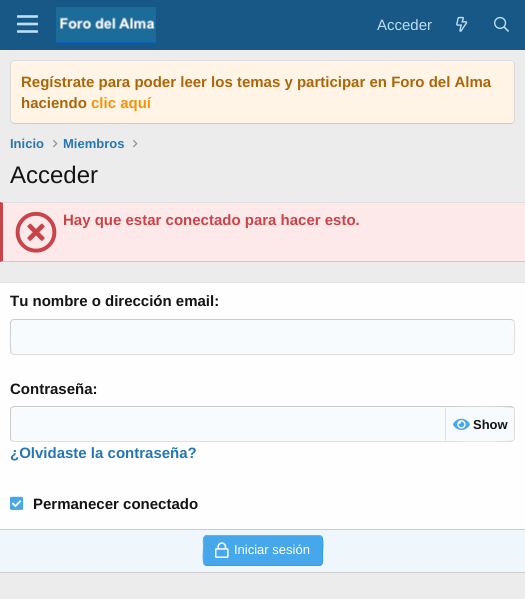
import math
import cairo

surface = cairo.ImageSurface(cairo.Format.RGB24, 525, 599)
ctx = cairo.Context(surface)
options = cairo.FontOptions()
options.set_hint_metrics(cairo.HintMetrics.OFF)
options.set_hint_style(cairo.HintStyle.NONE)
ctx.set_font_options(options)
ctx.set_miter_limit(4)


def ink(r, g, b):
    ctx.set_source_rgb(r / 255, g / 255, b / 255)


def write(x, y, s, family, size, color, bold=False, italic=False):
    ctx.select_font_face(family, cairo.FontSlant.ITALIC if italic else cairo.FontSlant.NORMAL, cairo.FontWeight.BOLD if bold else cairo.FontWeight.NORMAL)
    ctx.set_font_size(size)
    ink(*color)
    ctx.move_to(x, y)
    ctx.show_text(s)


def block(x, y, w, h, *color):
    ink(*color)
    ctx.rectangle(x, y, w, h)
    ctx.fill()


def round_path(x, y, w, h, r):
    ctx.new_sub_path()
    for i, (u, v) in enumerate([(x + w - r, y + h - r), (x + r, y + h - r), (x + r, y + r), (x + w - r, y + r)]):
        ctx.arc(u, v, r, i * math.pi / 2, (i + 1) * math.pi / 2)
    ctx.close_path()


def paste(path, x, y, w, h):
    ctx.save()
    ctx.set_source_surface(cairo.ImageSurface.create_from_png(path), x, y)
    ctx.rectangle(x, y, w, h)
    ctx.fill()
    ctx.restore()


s1 = dict(family="Liberation Sans", size=15, color=(188, 222, 245))
s2 = dict(family="Liberation Sans", size=15, color=(170, 103, 9), bold=True)
s3 = dict(family="Liberation Sans", size=15, color=(242, 147, 13), bold=True)
s4 = dict(family="Liberation Sans", size=13, color=(37, 119, 177), bold=True)
s5 = dict(family="Liberation Sans", size=24, color=(20, 20, 20))
s6 = dict(family="Liberation Sans", size=15, color=(200, 68, 72), bold=True)
s7 = dict(family="Liberation Sans", size=15, color=(20, 20, 20), bold=True)
s8 = dict(family="Liberation Sans", size=13, color=(20, 20, 20), bold=True)
s9 = dict(family="Liberation Sans", size=15, color=(37, 119, 177), bold=True)
s10 = dict(family="Liberation Sans", size=13, color=(255, 255, 255))

ink(236, 236, 236)
ctx.paint()
block(0, 0, 525, 50, 24, 88, 134)
paste("pic1.png", 17, 15, 21, 18)
paste("pic2.png", 56, 7, 100, 36)
write(377, 30, "Acceder", **s1)
paste("pic3.png", 456, 16, 12, 16)
paste("pic4.png", 494, 16, 15, 16)
ink(255, 244, 229)
round_path(10, 60, 505, 64, 4)
ctx.fill()
ctx.new_path()
ctx.move_to(11.5, 61.5)
ctx.line_to(14, 60.5)
ctx.line_to(511, 60.5)
ctx.line_to(513.5, 61.5)
ink(223, 223, 223)
ctx.set_line_width(1)
ctx.stroke()
ctx.new_path()
ctx.move_to(513.5, 61.5)
ctx.line_to(514.5, 63.5)
ctx.line_to(514.5, 120.5)
ctx.line_to(513.5, 122.5)
ink(216, 216, 216)
ctx.stroke()
ctx.new_path()
ctx.move_to(513.5, 122.5)
ctx.line_to(511, 123.5)
ctx.line_to(14, 123.5)
ctx.line_to(11.5, 122.5)
ink(203, 203, 203)
ctx.stroke()
ctx.new_path()
ctx.move_to(11.5, 122.5)
ctx.line_to(10.5, 120.5)
ctx.line_to(10.5, 63.5)
ctx.line_to(11.5, 61.5)
ink(216, 216, 216)
ctx.stroke()
write(21, 87, "Regístrate para poder leer los temas y participar en Foro del Alma", **s2)
write(21, 108, "haciendo", **s2)
write(91, 108, "clic aquí", **s3)
write(10, 148, "Inicio", **s4)
paste("pic5.png", 53, 140, 5, 8)
write(63, 148, "Miembros", **s4)
paste("pic5.png", 133, 140, 5, 8)
write(10, 183, "Acceder", **s5)
block(0, 202, 525, 60, 253, 233, 233)
ink(223, 223, 223)
ctx.new_path()
ctx.move_to(0, 202)
ctx.line_to(525, 202)
ctx.line_to(525, 203)
ctx.line_to(3, 203)
ctx.close_path()
ctx.fill()
ink(203, 203, 203)
ctx.new_path()
ctx.move_to(525, 262)
ctx.line_to(0, 262)
ctx.line_to(3, 261)
ctx.line_to(525, 261)
ctx.close_path()
ctx.fill()
ink(200, 68, 72)
ctx.new_path()
ctx.move_to(0, 262)
ctx.line_to(0, 202)
ctx.line_to(3, 203)
ctx.line_to(3, 261)
ctx.close_path()
ctx.fill()
paste("pic6.png", 15, 211, 42, 42)
write(63, 225, "Hay que estar conectado para hacer esto.", **s6)
block(0, 283, 525, 246, 254, 254, 254)
block(0, 282, 525, 1, 223, 223, 223)
block(0, 572, 525, 1, 203, 203, 203)
write(10, 306, "Tu nombre o dirección email:", **s7)
ink(247, 251, 254)
round_path(10, 319, 505, 36, 4)
ctx.fill()
ctx.new_path()
ctx.move_to(513.5, 320.5)
ctx.curve_to(515.5, 323, 514.5, 342, 514.5, 346.5)
ctx.curve_to(514.5, 349, 515.5, 354.5, 511, 354.5)
ctx.line_to(14, 354.5)
ctx.line_to(11.5, 353.5)
ink(223, 223, 223)
ctx.stroke()
ctx.new_path()
ctx.move_to(11.5, 353.5)
ctx.curve_to(9.5, 351, 10.5, 332, 10.5, 327.5)
ctx.curve_to(10.5, 325, 9.5, 319.5, 14, 319.5)
ctx.line_to(511, 319.5)
ctx.line_to(513.5, 320.5)
ink(203, 203, 203)
ctx.stroke()
write(10, 394, "Contraseña:", **s7)
ink(247, 251, 254)
ctx.new_path()
ctx.move_to(14, 406)
ctx.line_to(445, 406)
ctx.line_to(445, 442)
ctx.line_to(14, 442)
ctx.curve_to(12, 442, 10, 440, 10, 438)
ctx.line_to(10, 410)
ctx.curve_to(10, 408, 12, 406, 14, 406)
ctx.close_path()
ctx.fill()
ink(203, 203, 203)
ctx.new_path()
ctx.move_to(14, 406)
ctx.line_to(11, 407)
ctx.line_to(12, 408)
ctx.line_to(14, 407)
ctx.line_to(445, 407)
ctx.line_to(445, 406)
ctx.close_path()
ctx.fill()
ink(223, 223, 223)
ctx.new_path()
ctx.move_to(445, 442)
ctx.line_to(445, 441)
ctx.line_to(14, 441)
ctx.line_to(12, 440)
ctx.line_to(11, 441)
ctx.line_to(14, 442)
ctx.close_path()
ctx.fill()
ink(203, 203, 203)
ctx.new_path()
ctx.move_to(10, 410)
ctx.line_to(10, 438)
ctx.curve_to(10, 439, 10.5, 440, 11, 441)
ctx.line_to(12, 440)
ctx.curve_to(11, 440, 11, 439, 11, 438)
ctx.line_to(11, 410)
ctx.curve_to(11, 409, 11, 408, 12, 408)
ctx.line_to(11, 407)
ctx.curve_to(10.5, 408, 10, 409, 10, 410)
ctx.close_path()
ctx.fill()
ink(247, 251, 254)
ctx.new_path()
ctx.move_to(445, 406)
ctx.line_to(511, 406)
ctx.curve_to(513, 406, 515, 408, 515, 410)
ctx.line_to(515, 438)
ctx.curve_to(515, 440, 513, 442, 511, 442)
ctx.line_to(445, 442)
ctx.close_path()
ctx.fill()
ink(203, 203, 203)
ctx.new_path()
ctx.move_to(445, 406)
ctx.line_to(446, 407)
ctx.curve_to(453, 407, 512, 406, 513, 408)
ctx.line_to(514, 407)
ctx.line_to(511, 406)
ctx.close_path()
ctx.fill()
ink(223, 223, 223)
ctx.new_path()
ctx.move_to(515, 438)
ctx.line_to(515, 410)
ctx.curve_to(515, 409, 514.5, 408, 514, 407)
ctx.line_to(513, 408)
ctx.curve_to(514, 408, 514, 409, 514, 410)
ctx.line_to(514, 438)
ctx.curve_to(514, 439, 514, 440, 513, 440)
ctx.line_to(514, 441)
ctx.curve_to(514.5, 440, 515, 439, 515, 438)
ctx.close_path()
ctx.fill()
ctx.new_path()
ctx.move_to(511, 442)
ctx.line_to(514, 441)
ctx.line_to(513, 440)
ctx.curve_to(512, 442, 453, 441, 446, 441)
ctx.line_to(445, 442)
ctx.close_path()
ctx.fill()
ctx.new_path()
ctx.move_to(445, 406)
ctx.line_to(445, 442)
ctx.line_to(446, 441)
ctx.line_to(446, 407)
ctx.close_path()
ctx.fill()
paste("pic7.png", 453, 418, 17, 12)
write(473, 429, "Show", **s8)
write(10, 458, "¿Olvidaste la contraseña?", **s9)
paste("pic8.png", 10, 496, 14, 14)
write(33, 509, "Permanecer conectado", **s7)
block(0, 530, 525, 42, 239, 247, 253)
block(0, 529, 525, 1, 203, 203, 203)
ink(71, 167, 235)
round_path(203, 535, 120, 31, 4)
ctx.fill()
ctx.new_path()
ctx.move_to(321.5, 536.5)
ctx.curve_to(324, 539, 322.5, 551, 322.5, 554.5)
ctx.curve_to(322.5, 557, 324, 565.5, 319, 565.5)
ctx.line_to(207, 565.5)
ctx.line_to(204.5, 564.5)
ink(48, 156, 232)
ctx.stroke()
ctx.new_path()
ctx.move_to(204.5, 564.5)
ctx.curve_to(202, 562, 203.5, 550, 203.5, 546.5)
ctx.curve_to(203.5, 544, 202, 535.5, 207, 535.5)
ctx.line_to(319, 535.5)
ctx.line_to(321.5, 536.5)
ink(94, 178, 237)
ctx.stroke()
paste("pic9.png", 215, 542, 14, 16)
write(234, 554, "Iniciar sesión", **s10)
surface.write_to_png("screenshot.png")
